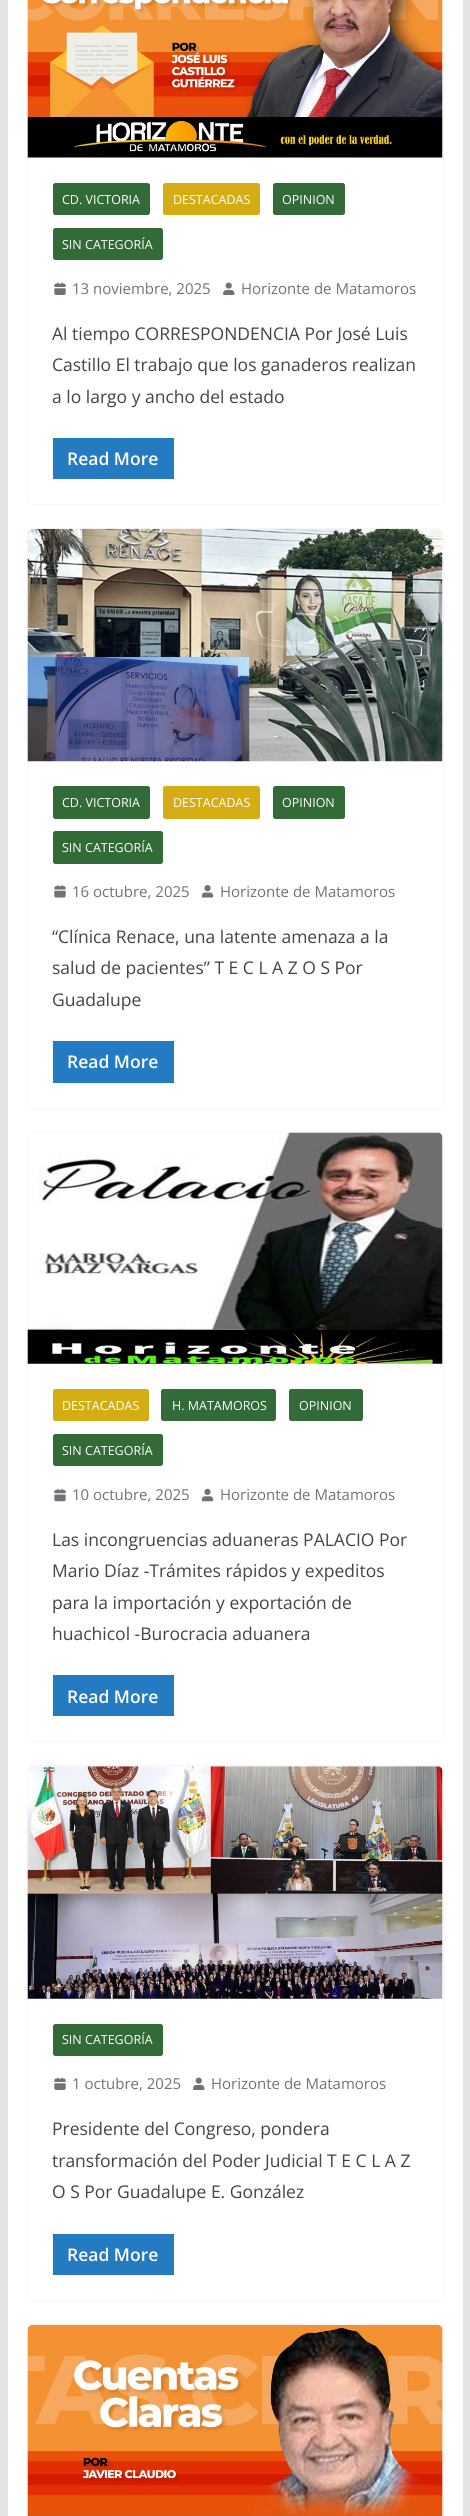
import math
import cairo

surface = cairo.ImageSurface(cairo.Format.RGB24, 470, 2516)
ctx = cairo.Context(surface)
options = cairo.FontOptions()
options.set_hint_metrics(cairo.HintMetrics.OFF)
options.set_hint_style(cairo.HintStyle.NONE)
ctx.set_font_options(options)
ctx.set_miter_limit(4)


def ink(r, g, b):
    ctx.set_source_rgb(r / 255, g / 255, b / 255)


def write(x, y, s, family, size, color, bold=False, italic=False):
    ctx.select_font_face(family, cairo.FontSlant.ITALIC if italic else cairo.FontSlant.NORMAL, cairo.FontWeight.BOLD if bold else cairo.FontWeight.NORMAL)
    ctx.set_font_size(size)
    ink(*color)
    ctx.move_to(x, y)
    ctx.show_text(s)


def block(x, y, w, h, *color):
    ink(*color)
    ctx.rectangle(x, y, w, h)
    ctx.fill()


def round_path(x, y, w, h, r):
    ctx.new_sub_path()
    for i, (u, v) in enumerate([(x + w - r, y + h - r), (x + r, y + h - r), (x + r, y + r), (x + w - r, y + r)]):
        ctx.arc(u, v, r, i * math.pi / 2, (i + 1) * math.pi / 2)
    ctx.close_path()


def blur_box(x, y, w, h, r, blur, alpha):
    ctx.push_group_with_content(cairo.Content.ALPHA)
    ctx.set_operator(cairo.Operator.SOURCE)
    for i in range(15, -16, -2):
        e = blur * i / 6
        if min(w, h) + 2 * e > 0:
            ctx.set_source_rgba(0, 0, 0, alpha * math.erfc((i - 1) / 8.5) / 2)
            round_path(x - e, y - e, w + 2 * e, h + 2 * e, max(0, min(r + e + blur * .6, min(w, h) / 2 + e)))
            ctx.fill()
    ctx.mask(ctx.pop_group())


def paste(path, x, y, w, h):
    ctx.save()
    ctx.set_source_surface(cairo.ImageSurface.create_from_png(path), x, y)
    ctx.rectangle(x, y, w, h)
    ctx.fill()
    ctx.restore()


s1 = dict(family="Open Sans", size=12.5, color=(255, 255, 255))
s2 = dict(family="Open Sans", size=15, color=(113, 113, 122))
s3 = dict(family="Open Sans", size=17.5, color=(68, 68, 68))
s4 = dict(family="Open Sans SemiBold", size=17.5, color=(255, 255, 255))

ink(228, 228, 231)
ctx.paint()
block(8, 0, 455, 2516, 255, 255, 255)
ctx.save()
ctx.set_fill_rule(cairo.FillRule.EVEN_ODD)
ctx.new_path()
ctx.move_to(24, 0)
ctx.line_to(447, 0)
ctx.line_to(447, 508)
ctx.line_to(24, 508)
ctx.close_path()
ctx.move_to(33, -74)
ctx.line_to(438, -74)
ctx.curve_to(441, -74, 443, -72, 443, -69)
ctx.line_to(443, 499)
ctx.curve_to(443, 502, 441, 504, 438, 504)
ctx.line_to(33, 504)
ctx.curve_to(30, 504, 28, 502, 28, 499)
ctx.line_to(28, -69)
ctx.curve_to(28, -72, 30, -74, 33, -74)
ctx.close_path()
ctx.clip()
ink(228, 228, 231)
blur_box(28, -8, 415, 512, 5, 1, 1)
ctx.restore()
paste("pic1.png", 27, 0, 416, 158)
ink(50, 107, 56)
round_path(53, 183, 97, 32, 2.5)
ctx.fill()
write(62, 204, "CD. VICTORIA", **s1)
ink(211, 173, 19)
round_path(163, 183, 97, 32, 2.5)
ctx.fill()
write(173, 204, "DESTACADAS", **s1)
ink(50, 107, 56)
round_path(273, 183, 72, 32, 2.5)
ctx.fill()
write(282, 204, "OPINION", **s1)
ink(50, 107, 56)
round_path(53, 228, 110, 32, 2.5)
ctx.fill()
write(62, 249, "SIN CATEGORÍA", **s1)
paste("pic2.png", 54, 282, 12, 13)
write(72, 294, "13 noviembre, 2025", **s2)
paste("pic3.png", 223, 282, 12, 13)
write(241, 294, "Horizonte de Matamoros", **s2)
write(52, 340, "Al tiempo CORRESPONDENCIA Por José Luis", **s3)
write(52, 371, "Castillo El trabajo que los ganaderos realizan", **s3)
write(52, 403, "a lo largo y ancho del estado", **s3)
block(53, 438, 121, 41, 50, 107, 56)
ink(37, 123, 193)
round_path(53, 438, 121, 41, 2.5)
ctx.fill()
write(67, 465, "Read More", **s4)
ctx.save()
ctx.set_fill_rule(cairo.FillRule.EVEN_ODD)
ctx.new_path()
ctx.move_to(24, 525)
ctx.line_to(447, 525)
ctx.line_to(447, 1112)
ctx.line_to(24, 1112)
ctx.close_path()
ctx.move_to(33, 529)
ctx.line_to(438, 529)
ctx.curve_to(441, 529, 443, 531, 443, 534)
ctx.line_to(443, 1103)
ctx.curve_to(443, 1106, 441, 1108, 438, 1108)
ctx.line_to(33, 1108)
ctx.curve_to(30, 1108, 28, 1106, 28, 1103)
ctx.line_to(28, 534)
ctx.curve_to(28, 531, 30, 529, 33, 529)
ctx.close_path()
ctx.clip()
ink(228, 228, 231)
blur_box(28, 529, 415, 579, 5, 1, 1)
ctx.restore()
paste("pic4.png", 27, 528, 416, 234)
ink(50, 107, 56)
round_path(53, 786, 97, 33, 2.5)
ctx.fill()
write(62, 807, "CD. VICTORIA", **s1)
ink(211, 173, 19)
round_path(163, 786, 97, 33, 2.5)
ctx.fill()
write(173, 807, "DESTACADAS", **s1)
ink(50, 107, 56)
round_path(273, 786, 72, 33, 2.5)
ctx.fill()
write(282, 807, "OPINION", **s1)
ink(50, 107, 56)
round_path(53, 831, 110, 33, 2.5)
ctx.fill()
write(62, 852, "SIN CATEGORÍA", **s1)
paste("pic5.png", 54, 885, 12, 13)
write(72, 897, "16 octubre, 2025", **s2)
paste("pic6.png", 201, 885, 13, 13)
write(220, 897, "Horizonte de Matamoros", **s2)
write(52, 943, "“Clínica Renace, una latente amenaza a la", **s3)
write(52, 974, "salud de pacientes” T E C L A Z O S Por", **s3)
write(52, 1006, "Guadalupe", **s3)
block(53, 1041, 121, 42, 50, 107, 56)
ink(37, 123, 193)
round_path(53, 1041, 121, 42, 2.5)
ctx.fill()
write(67, 1068, "Read More", **s4)
ctx.save()
ctx.set_fill_rule(cairo.FillRule.EVEN_ODD)
ctx.new_path()
ctx.move_to(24, 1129)
ctx.line_to(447, 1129)
ctx.line_to(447, 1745)
ctx.line_to(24, 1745)
ctx.close_path()
ctx.move_to(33, 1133)
ctx.line_to(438, 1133)
ctx.curve_to(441, 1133, 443, 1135, 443, 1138)
ctx.line_to(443, 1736)
ctx.curve_to(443, 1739, 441, 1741, 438, 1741)
ctx.line_to(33, 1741)
ctx.curve_to(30, 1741, 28, 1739, 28, 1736)
ctx.line_to(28, 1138)
ctx.curve_to(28, 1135, 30, 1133, 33, 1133)
ctx.close_path()
ctx.clip()
ink(228, 228, 231)
blur_box(28, 1133, 415, 608, 5, 1, 1)
ctx.restore()
paste("pic7.png", 27, 1132, 416, 232)
ink(211, 173, 19)
round_path(53, 1389, 96, 32, 2.5)
ctx.fill()
write(62, 1410, "DESTACADAS", **s1)
ink(50, 107, 56)
round_path(161, 1389, 115, 32, 2.5)
ctx.fill()
write(172, 1410, "H. MATAMOROS", **s1)
ink(50, 107, 56)
round_path(289, 1389, 74, 32, 2.5)
ctx.fill()
write(299, 1410, "OPINION", **s1)
ink(50, 107, 56)
round_path(53, 1434, 110, 32, 2.5)
ctx.fill()
write(62, 1455, "SIN CATEGORÍA", **s1)
paste("pic8.png", 54, 1488, 12, 14)
write(72, 1500, "10 octubre, 2025", **s2)
paste("pic9.png", 201, 1488, 13, 14)
write(220, 1500, "Horizonte de Matamoros", **s2)
write(52, 1546, "Las incongruencias aduaneras PALACIO Por", **s3)
write(52, 1577, "Mario Díaz -Trámites rápidos y expeditos", **s3)
write(52, 1609, "para la importación y exportación de", **s3)
write(52, 1640, "huachicol -Burocracia aduanera", **s3)
block(53, 1675, 121, 41, 50, 107, 56)
ink(37, 123, 193)
round_path(53, 1675, 121, 41, 2.5)
ctx.fill()
write(67, 1703, "Read More", **s4)
ctx.save()
ctx.set_fill_rule(cairo.FillRule.EVEN_ODD)
ctx.new_path()
ctx.move_to(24, 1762)
ctx.line_to(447, 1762)
ctx.line_to(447, 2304)
ctx.line_to(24, 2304)
ctx.close_path()
ctx.move_to(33, 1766)
ctx.line_to(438, 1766)
ctx.curve_to(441, 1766, 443, 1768, 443, 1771)
ctx.line_to(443, 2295)
ctx.curve_to(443, 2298, 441, 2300, 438, 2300)
ctx.line_to(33, 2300)
ctx.curve_to(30, 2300, 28, 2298, 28, 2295)
ctx.line_to(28, 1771)
ctx.curve_to(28, 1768, 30, 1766, 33, 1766)
ctx.close_path()
ctx.clip()
ink(228, 228, 231)
blur_box(28, 1766, 415, 534, 5, 1, 1)
ctx.restore()
paste("pic10.png", 27, 1766, 416, 233)
ink(50, 107, 56)
round_path(53, 2024, 110, 32, 2.5)
ctx.fill()
write(62, 2044, "SIN CATEGORÍA", **s1)
paste("pic2.png", 54, 2077, 12, 13)
write(72, 2089, "1 octubre, 2025", **s2)
paste("pic3.png", 193, 2077, 12, 13)
write(211, 2089, "Horizonte de Matamoros", **s2)
write(52, 2135, "Presidente del Congreso, pondera", **s3)
write(52, 2167, "transformación del Poder Judicial T E C L A Z", **s3)
write(52, 2198, "O S Por Guadalupe E. González", **s3)
block(53, 2234, 121, 41, 50, 107, 56)
ink(37, 123, 193)
round_path(53, 2234, 121, 41, 2.5)
ctx.fill()
write(67, 2261, "Read More", **s4)
ink(228, 228, 231)
blur_box(28, 2325, 415, 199, 5, 1, 1)
paste("pic11.png", 27, 2325, 416, 191)
surface.write_to_png("screenshot.png")
